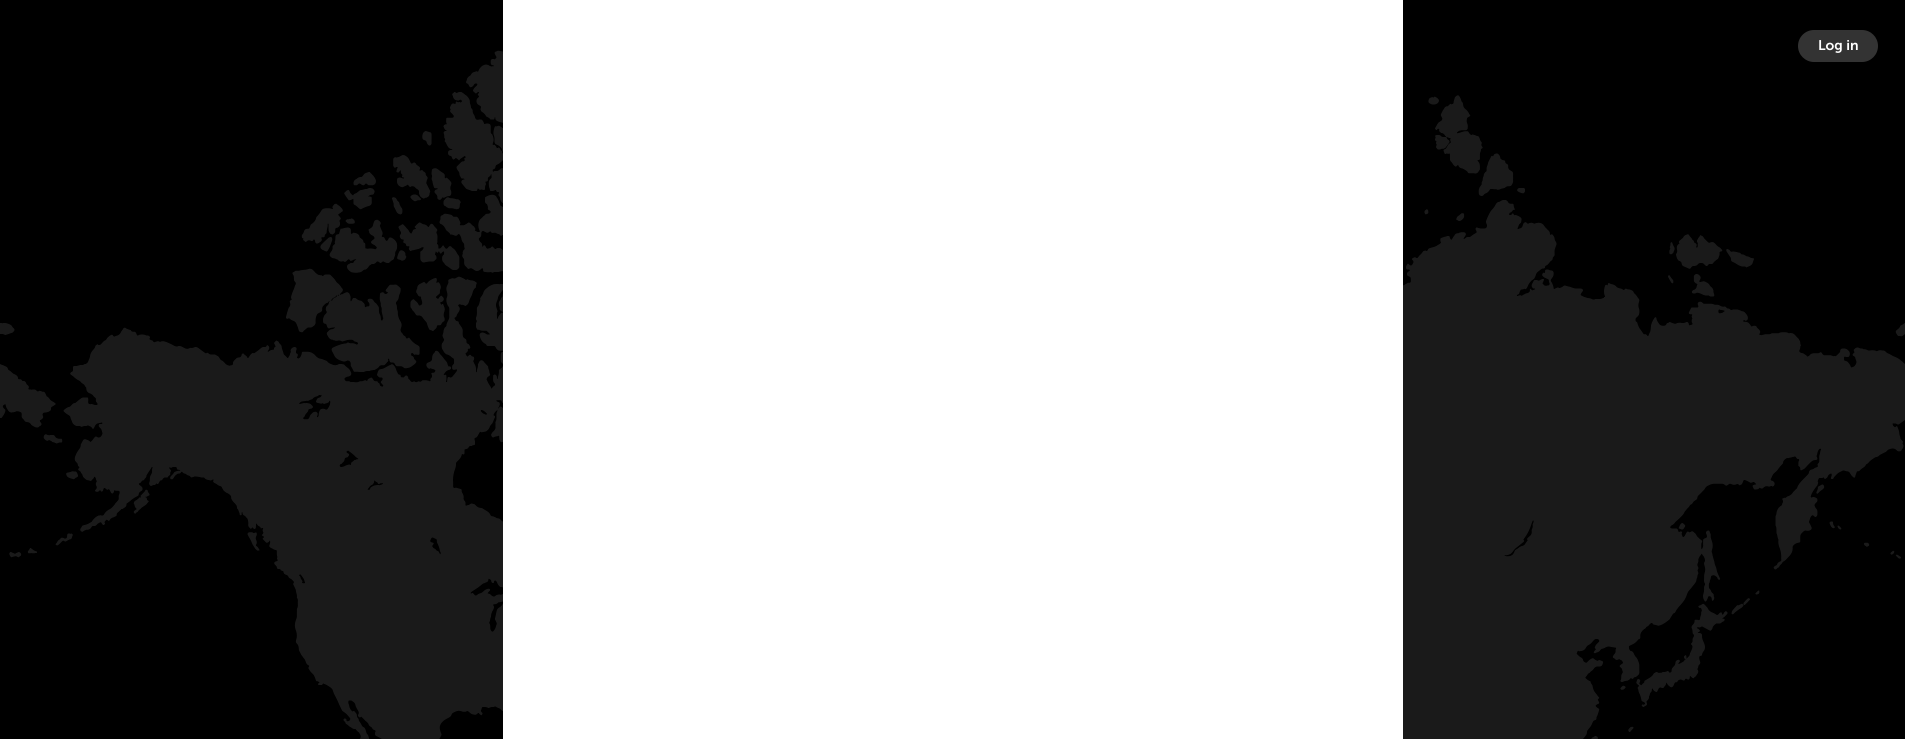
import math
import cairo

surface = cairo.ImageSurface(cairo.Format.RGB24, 1905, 739)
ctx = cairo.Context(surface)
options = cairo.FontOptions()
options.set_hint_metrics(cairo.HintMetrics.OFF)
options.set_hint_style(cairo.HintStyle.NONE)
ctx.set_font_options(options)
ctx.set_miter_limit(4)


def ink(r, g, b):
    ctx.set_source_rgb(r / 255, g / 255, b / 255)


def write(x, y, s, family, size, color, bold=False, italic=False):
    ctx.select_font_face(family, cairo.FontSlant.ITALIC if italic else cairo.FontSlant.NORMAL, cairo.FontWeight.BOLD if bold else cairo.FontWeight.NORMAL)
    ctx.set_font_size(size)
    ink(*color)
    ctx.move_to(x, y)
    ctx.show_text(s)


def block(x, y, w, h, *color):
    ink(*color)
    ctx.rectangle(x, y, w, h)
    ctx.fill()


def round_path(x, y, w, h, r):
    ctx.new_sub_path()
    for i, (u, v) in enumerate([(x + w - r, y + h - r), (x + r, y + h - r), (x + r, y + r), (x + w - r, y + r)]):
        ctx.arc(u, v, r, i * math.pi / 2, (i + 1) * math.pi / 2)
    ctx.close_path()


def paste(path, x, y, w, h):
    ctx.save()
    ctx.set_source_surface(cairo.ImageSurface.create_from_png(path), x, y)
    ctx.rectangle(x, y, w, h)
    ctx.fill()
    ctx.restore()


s1 = dict(family="Museo Sans SemiBold", size=14, color=(255, 255, 255))

ink(0, 0, 0)
ctx.paint()
paste("pic1.png", 0, 50, 1905, 689)
block(503, 0, 900, 739, 255, 255, 255)
ink(51, 51, 51)
round_path(1798, 30, 80, 32, 16)
ctx.fill()
write(1818, 50, "Log in", **s1)
surface.write_to_png("screenshot.png")
